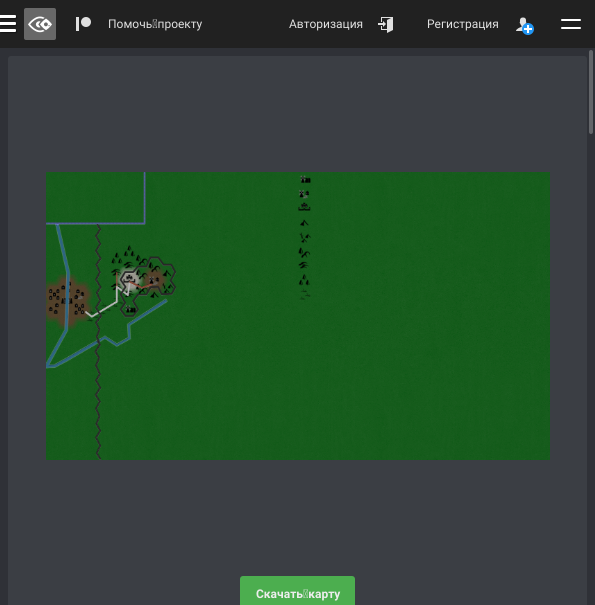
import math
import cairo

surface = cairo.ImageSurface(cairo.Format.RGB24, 595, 605)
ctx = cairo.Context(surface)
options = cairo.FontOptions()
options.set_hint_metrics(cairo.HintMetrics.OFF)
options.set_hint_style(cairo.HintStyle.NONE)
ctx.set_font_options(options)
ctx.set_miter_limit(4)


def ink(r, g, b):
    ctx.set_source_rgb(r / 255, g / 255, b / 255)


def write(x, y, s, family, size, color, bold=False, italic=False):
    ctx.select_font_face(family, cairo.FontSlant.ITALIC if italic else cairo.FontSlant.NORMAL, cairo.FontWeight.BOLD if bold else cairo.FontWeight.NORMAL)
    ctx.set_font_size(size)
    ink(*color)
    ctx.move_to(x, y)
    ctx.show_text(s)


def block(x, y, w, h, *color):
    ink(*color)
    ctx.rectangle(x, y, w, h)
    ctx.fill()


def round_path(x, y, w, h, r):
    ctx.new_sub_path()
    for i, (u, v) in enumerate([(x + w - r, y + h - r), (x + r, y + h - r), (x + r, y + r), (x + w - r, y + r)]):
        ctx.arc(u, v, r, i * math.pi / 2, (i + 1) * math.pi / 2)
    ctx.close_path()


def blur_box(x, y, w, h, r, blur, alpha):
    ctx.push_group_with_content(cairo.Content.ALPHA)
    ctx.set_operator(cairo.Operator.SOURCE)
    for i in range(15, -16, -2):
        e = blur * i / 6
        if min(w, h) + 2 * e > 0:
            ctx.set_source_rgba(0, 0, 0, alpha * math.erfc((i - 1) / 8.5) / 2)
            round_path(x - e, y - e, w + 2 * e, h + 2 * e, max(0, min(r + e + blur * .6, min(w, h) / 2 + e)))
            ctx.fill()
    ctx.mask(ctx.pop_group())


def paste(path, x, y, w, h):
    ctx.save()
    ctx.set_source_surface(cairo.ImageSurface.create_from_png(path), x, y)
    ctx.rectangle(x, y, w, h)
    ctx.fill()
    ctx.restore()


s1 = dict(family="Roboto", size=12, color=(224, 224, 224))
s2 = dict(family="Roboto", size=12, color=(237, 237, 237), bold=True)

ink(47, 49, 55)
ctx.paint()
block(0, 0, 595, 48, 33, 33, 33)
ink(0, 0, 0)
blur_box(1, 16, 16, 3, 1, 0.5, 0.4)
ink(255, 255, 255)
ctx.new_path()
ctx.move_to(0, 15)
ctx.line_to(15, 15)
ctx.curve_to(15.5, 15, 16, 15.5, 16, 16)
ctx.line_to(16, 17)
ctx.curve_to(16, 17.5, 15.5, 18, 15, 18)
ctx.line_to(0, 18)
ctx.close_path()
ctx.fill()
ink(0, 0, 0)
blur_box(1, 23, 16, 3, 1, 0.5, 0.4)
ink(255, 255, 255)
ctx.new_path()
ctx.move_to(0, 22)
ctx.line_to(15, 22)
ctx.curve_to(15.5, 22, 16, 22.5, 16, 23)
ctx.line_to(16, 24)
ctx.curve_to(16, 24.5, 15.5, 25, 15, 25)
ctx.line_to(0, 25)
ctx.close_path()
ctx.fill()
ink(0, 0, 0)
blur_box(1, 30, 16, 3, 1, 0.5, 0.4)
ink(255, 255, 255)
ctx.new_path()
ctx.move_to(0, 29)
ctx.line_to(15, 29)
ctx.curve_to(15.5, 29, 16, 29.5, 16, 30)
ctx.line_to(16, 31)
ctx.curve_to(16, 31.5, 15.5, 32, 15, 32)
ctx.line_to(0, 32)
ctx.close_path()
ctx.fill()
ink(77, 77, 77)
round_path(24, 8, 32, 32, 2)
ctx.fill()
ctx.set_source_rgba(1, 1, 1, 0.15)
round_path(24, 8, 32, 32, 2)
ctx.fill()
paste("pic1.png", 28, 16, 24, 17)
paste("pic2.png", 76, 17, 15, 14)
write(108, 28, "Помочь проекту", **s1)
write(289, 28, "Авторизация", **s1)
paste("pic3.png", 378, 17, 15, 16)
write(427, 28, "Регистрация", **s1)
paste("pic4.png", 516, 17, 11, 14)
ink(33, 150, 243)
ctx.arc(528, 29, 6, 0, 2 * math.pi)
ctx.fill()
paste("pic5.png", 524, 25, 8, 8)
ink(255, 255, 255)
round_path(561, 19, 20, 2, 1)
ctx.fill()
round_path(561, 27, 20, 2, 1)
ctx.fill()
ink(99, 101, 105)
round_path(589, 50, 4, 84, 2)
ctx.fill()
ink(59, 62, 68)
round_path(8, 56, 579, 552, 3)
ctx.fill()
paste("pic6.png", 46, 172, 504, 288)
ink(76, 174, 79)
round_path(240, 576, 115, 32, 3)
ctx.fill()
write(256, 598, "Скачать карту", **s2)
surface.write_to_png("screenshot.png")
